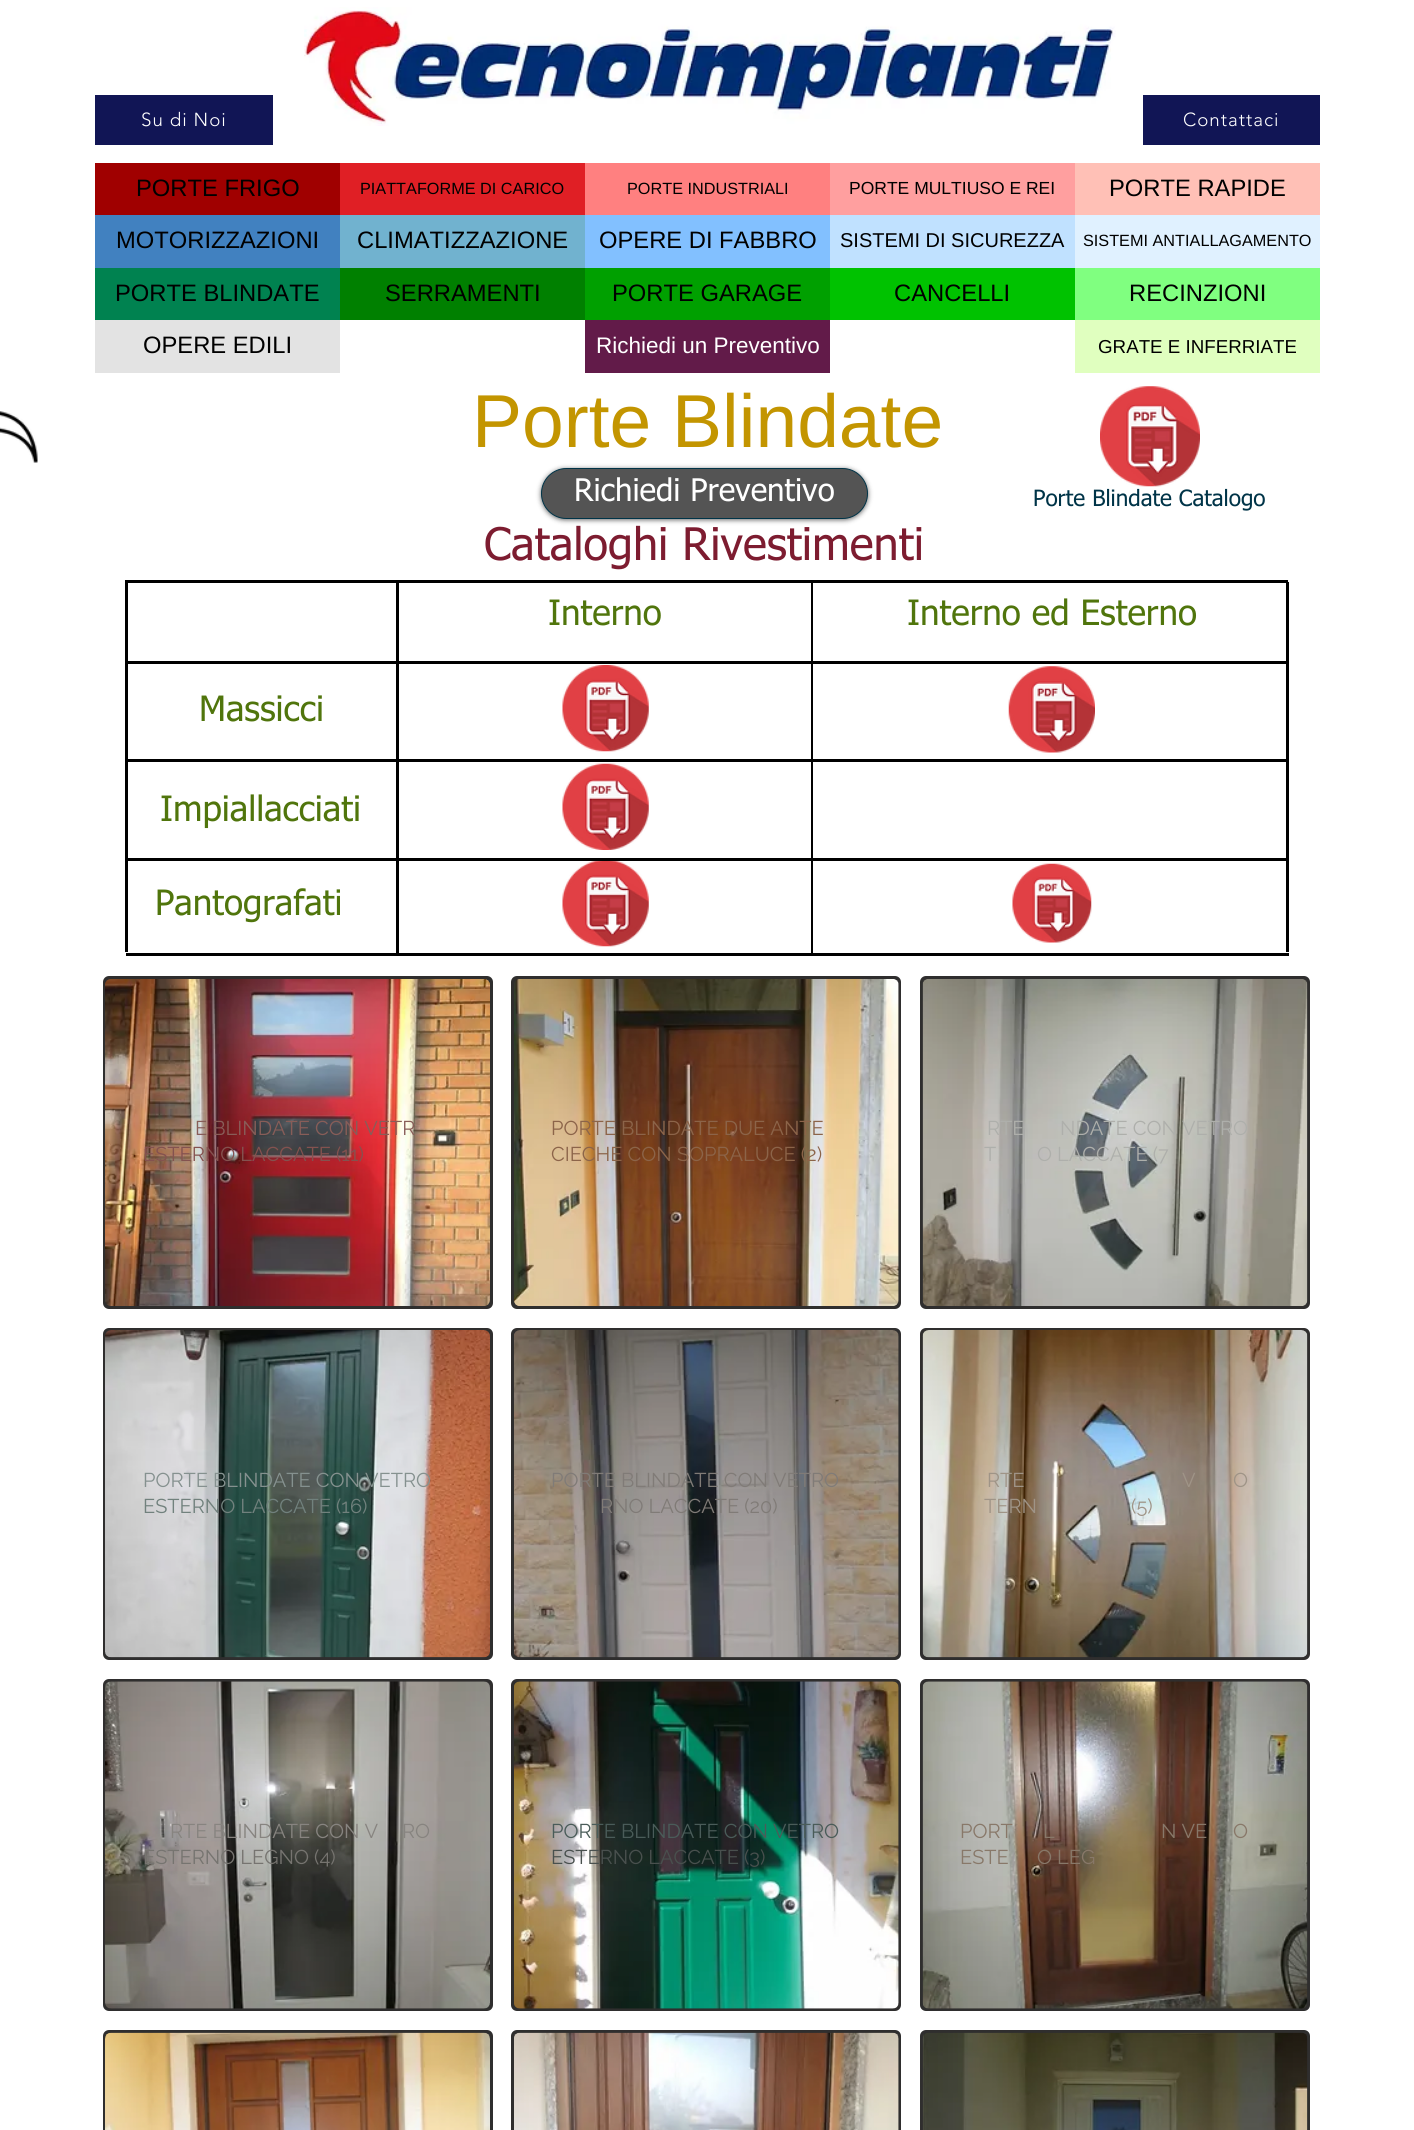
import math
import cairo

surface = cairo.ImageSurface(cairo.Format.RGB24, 1414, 2130)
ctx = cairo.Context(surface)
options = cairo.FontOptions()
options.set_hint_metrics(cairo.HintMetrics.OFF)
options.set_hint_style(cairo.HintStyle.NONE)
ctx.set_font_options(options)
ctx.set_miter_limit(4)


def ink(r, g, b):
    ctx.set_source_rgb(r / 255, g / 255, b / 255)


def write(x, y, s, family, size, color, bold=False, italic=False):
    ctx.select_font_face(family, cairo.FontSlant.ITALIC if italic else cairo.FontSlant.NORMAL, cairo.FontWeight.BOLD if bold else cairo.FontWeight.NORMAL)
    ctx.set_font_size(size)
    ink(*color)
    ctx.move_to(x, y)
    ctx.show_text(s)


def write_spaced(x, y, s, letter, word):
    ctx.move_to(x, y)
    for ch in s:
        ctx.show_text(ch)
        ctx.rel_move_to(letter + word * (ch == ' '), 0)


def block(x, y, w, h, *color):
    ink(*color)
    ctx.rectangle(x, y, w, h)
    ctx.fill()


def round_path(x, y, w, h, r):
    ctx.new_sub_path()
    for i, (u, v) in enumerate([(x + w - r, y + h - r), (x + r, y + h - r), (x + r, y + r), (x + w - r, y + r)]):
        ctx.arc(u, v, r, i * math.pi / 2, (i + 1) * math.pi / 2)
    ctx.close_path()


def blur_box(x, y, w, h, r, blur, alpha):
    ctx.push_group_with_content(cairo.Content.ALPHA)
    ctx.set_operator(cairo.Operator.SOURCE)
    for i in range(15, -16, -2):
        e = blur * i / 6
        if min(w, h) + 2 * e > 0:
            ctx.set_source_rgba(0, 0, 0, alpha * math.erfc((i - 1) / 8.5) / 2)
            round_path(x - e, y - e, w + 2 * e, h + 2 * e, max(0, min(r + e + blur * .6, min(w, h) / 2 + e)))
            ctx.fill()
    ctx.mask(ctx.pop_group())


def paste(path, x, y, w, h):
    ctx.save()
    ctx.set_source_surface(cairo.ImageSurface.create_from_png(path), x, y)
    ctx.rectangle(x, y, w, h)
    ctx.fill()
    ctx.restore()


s1 = dict(family="Liberation Sans", size=23.75, color=(0, 0, 0))
s2 = dict(family="Liberation Sans", size=16.25, color=(0, 0, 0))
s3 = dict(family="Liberation Sans", size=17.5, color=(0, 0, 0))
s4 = dict(family="Liberation Sans", size=20, color=(0, 0, 0))
s5 = dict(family="Liberation Sans", size=22.5, color=(255, 255, 255))
s6 = dict(family="Liberation Sans", size=18.75, color=(0, 0, 0))
s7 = dict(family="Liberation Sans", size=75, color=(195, 149, 0))
s8 = dict(family="tahoma", size=31.25, color=(255, 255, 255))
s9 = dict(family="tahoma", size=22.5, color=(0, 52, 72))
s10 = dict(family="tahoma", size=45, color=(125, 28, 48))
s11 = dict(family="tahoma", size=35, color=(80, 117, 12))
s12 = dict(family="Raleway", size=20, color=(136, 93, 88))
s13 = dict(family="Raleway", size=20, color=(132, 82, 79))
s14 = dict(family="Raleway", size=20, color=(140, 100, 73))
s15 = dict(family="Raleway", size=20, color=(174, 175, 171))
s16 = dict(family="Raleway", size=20, color=(133, 145, 143))
s17 = dict(family="Raleway", size=20, color=(113, 129, 125))
s18 = dict(family="Raleway", size=20, color=(128, 123, 119))
s19 = dict(family="Raleway", size=20, color=(159, 148, 135))
s20 = dict(family="Raleway", size=20, color=(135, 132, 128))
s21 = dict(family="Raleway", size=20, color=(118, 116, 112))
s22 = dict(family="Raleway", size=20, color=(74, 92, 89))
s23 = dict(family="Raleway", size=20, color=(73, 80, 78))
s24 = dict(family="Raleway", size=20, color=(136, 120, 105))

ink(255, 255, 255)
ctx.paint()
block(95, 95, 178, 50, 17, 21, 85)
ctx.select_font_face("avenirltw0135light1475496 Light")
ctx.set_font_size(18.75)
ink(255, 255, 255)
write_spaced(141, 126, "Su di Noi", 1, 0)
paste("pic1.png", 304, 7, 812, 119)
block(1143, 95, 177, 50, 17, 21, 85)
ink(255, 255, 255)
write_spaced(1183, 126, "Contattaci", 1, 0)
block(95, 163, 245, 52, 160, 0, 0)
write(136, 196, "PORTE FRIGO", **s1)
block(340, 163, 245, 52, 224, 31, 37)
write(360, 194, "PIATTAFORME DI CARICO", **s2)
block(585, 163, 245, 52, 255, 128, 128)
write(627, 194, "PORTE INDUSTRIALI", **s2)
block(830, 163, 245, 52, 255, 159, 159)
write(849, 194, "PORTE MULTIUSO E REI", **s3)
block(1075, 163, 245, 52, 255, 192, 182)
write(1109, 196, "PORTE RAPIDE", **s1)
block(95, 215, 245, 53, 65, 129, 192)
write(116, 248, "MOTORIZZAZIONI", **s1)
block(340, 215, 245, 53, 113, 178, 207)
write(357, 248, "CLIMATIZZAZIONE", **s1)
block(585, 215, 245, 53, 130, 192, 255)
write(599, 248, "OPERE DI FABBRO", **s1)
block(830, 215, 245, 53, 192, 225, 255)
write(840, 247, "SISTEMI DI SICUREZZA", **s4)
block(1075, 215, 245, 53, 224, 241, 255)
write(1083, 246, "SISTEMI ANTIALLAGAMENTO", **s2)
block(95, 268, 245, 52, 0, 130, 80)
write(115, 301, "PORTE BLINDATE", **s1)
block(340, 268, 245, 52, 0, 128, 0)
write(385, 301, "SERRAMENTI", **s1)
block(585, 268, 245, 52, 0, 160, 0)
write(612, 301, "PORTE GARAGE", **s1)
block(830, 268, 245, 52, 0, 194, 0)
write(894, 301, "CANCELLI", **s1)
block(1075, 268, 245, 52, 128, 255, 128)
write(1129, 301, "RECINZIONI", **s1)
block(95, 320, 245, 53, 227, 227, 227)
write(143, 353, "OPERE EDILI", **s1)
block(585, 320, 245, 53, 98, 27, 73)
write(596, 353, "Richiedi un Preventivo", **s5)
block(1075, 320, 245, 53, 224, 255, 191)
write(1098, 353, "GRATE E INFERRIATE", **s6)
paste("pic2.png", 0, 411, 38, 52)
write(472, 447, "Porte Blindate", **s7)
ink(0, 0, 0)
blur_box(541, 469, 327, 51, 25.5, 2.5, 0.6)
ink(84, 84, 84)
round_path(541.5, 468.5, 326, 50, 25)
ctx.fill_preserve()
ink(0, 52, 72)
ctx.set_line_width(1)
ctx.stroke()
write(574, 501, "Richiedi Preventivo", **s8)
paste("pic3.png", 1100, 386, 100, 101)
write(1033, 506, "Porte Blindate Catalogo", **s9)
write(484, 560, "Cataloghi Rivestimenti", **s10)
block(126, 858, 1162, 3, 0, 0, 0)
block(125, 580, 3, 372, 0, 0, 0)
block(128, 759, 1161, 3, 0, 0, 0)
block(126, 953, 1163, 3, 0, 0, 0)
block(128, 661, 1161, 3, 0, 0, 0)
block(396, 581, 3, 373, 0, 0, 0)
block(811, 581, 2, 373, 0, 0, 0)
block(1286, 582, 3, 370, 0, 0, 0)
block(128, 580, 1160, 3, 0, 0, 0)
write(548, 625, "Interno", **s11)
write(907, 625, "Interno ed Esterno", **s11)
write(199, 721, "Massicci", **s11)
paste("pic4.png", 562, 665, 87, 87)
paste("pic5.png", 1008, 666, 87, 87)
write(160, 821, "Impiallacciati", **s11)
paste("pic6.png", 562, 763, 87, 87)
write(155, 915, "Pantografati", **s11)
paste("pic7.png", 562, 861, 87, 86)
paste("pic8.png", 1012, 863, 80, 80)
ink(47, 46, 46)
round_path(104.5, 977.5, 387, 330, 4.5)
ctx.fill_preserve()
ctx.set_line_width(3)
ctx.stroke()
paste("pic9.png", 105, 979, 385, 327)
write(195, 1135, "E BLINDATE CON VETR", **s12)
write(143, 1161, "ESTERNO LACCATE (11)", **s13)
ink(47, 46, 46)
round_path(512.5, 977.5, 387, 330, 4.5)
ctx.fill_preserve()
ctx.stroke()
paste("pic10.png", 514, 979, 385, 327)
write(551, 1135, "PORTE BLINDATE DUE ANTE", **s14)
write(551, 1161, "CIECHE CON SOPRALUCE (2)", **s14)
ink(47, 46, 46)
round_path(921.5, 977.5, 387, 330, 4.5)
ctx.fill_preserve()
ctx.stroke()
paste("pic11.png", 922, 979, 386, 327)
write(987, 1135, "RTE", **s15)
write(1060, 1135, "NDATE CON VETRO", **s15)
write(984, 1161, "T", **s15)
write(1037, 1161, "O LACCATE (7", **s15)
ink(47, 46, 46)
round_path(104.5, 1329.5, 387, 329, 4.5)
ctx.fill_preserve()
ctx.stroke()
paste("pic12.png", 105, 1330, 385, 328)
write(143, 1487, "PORTE BLINDATE CON VETRO", **s16)
write(143, 1513, "ESTERNO LACCATE (16)", **s17)
ink(47, 46, 46)
round_path(512.5, 1329.5, 387, 329, 4.5)
ctx.fill_preserve()
ctx.stroke()
paste("pic13.png", 514, 1330, 385, 328)
write(551, 1487, "PORTE BLINDATE CON VETRO", **s18)
write(600, 1513, "RNO LACCATE (20)", **s18)
ink(47, 46, 46)
round_path(921.5, 1329.5, 387, 329, 4.5)
ctx.fill_preserve()
ctx.stroke()
paste("pic14.png", 922, 1330, 386, 328)
write(987, 1487, "RTE", **s19)
write(1055, 1487, "I", **s19)
write(1182, 1487, "V", **s19)
write(1233, 1487, "O", **s19)
write(984, 1513, "TERN", **s19)
write(1131, 1513, "(5)", **s19)
ink(47, 46, 46)
round_path(104.5, 1680.5, 387, 329, 4.5)
ctx.fill_preserve()
ctx.stroke()
paste("pic15.png", 105, 1681, 385, 328)
write(170, 1838, "RTE BLINDATE CON V", **s20)
write(402, 1838, "RO", **s20)
write(143, 1864, "ESTERNO LEGNO (4)", **s21)
ink(47, 46, 46)
round_path(512.5, 1680.5, 387, 329, 4.5)
ctx.fill_preserve()
ctx.stroke()
paste("pic16.png", 514, 1681, 385, 328)
write(551, 1838, "PORTE BLINDATE CON VETRO", **s22)
write(551, 1864, "ESTERNO LACCATE (3)", **s23)
ink(47, 46, 46)
round_path(921.5, 1680.5, 387, 329, 4.5)
ctx.fill_preserve()
ctx.stroke()
paste("pic17.png", 922, 1681, 386, 328)
write(960, 1838, "PORT", **s24)
write(1043, 1838, "L", **s24)
write(1161, 1838, "N VE", **s24)
write(1233, 1838, "O", **s24)
write(960, 1864, "ESTE", **s24)
write(1037, 1864, "O LEG", **s24)
ink(47, 46, 46)
round_path(104.5, 2031.5, 387, 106, 4.5)
ctx.fill_preserve()
ctx.stroke()
paste("pic18.png", 105, 2032, 385, 98)
round_path(512.5, 2031.5, 387, 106, 4.5)
ctx.fill_preserve()
ctx.stroke()
paste("pic19.png", 514, 2032, 385, 98)
round_path(921.5, 2031.5, 387, 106, 4.5)
ctx.fill_preserve()
ctx.stroke()
paste("pic20.png", 922, 2032, 386, 98)
surface.write_to_png("screenshot.png")
